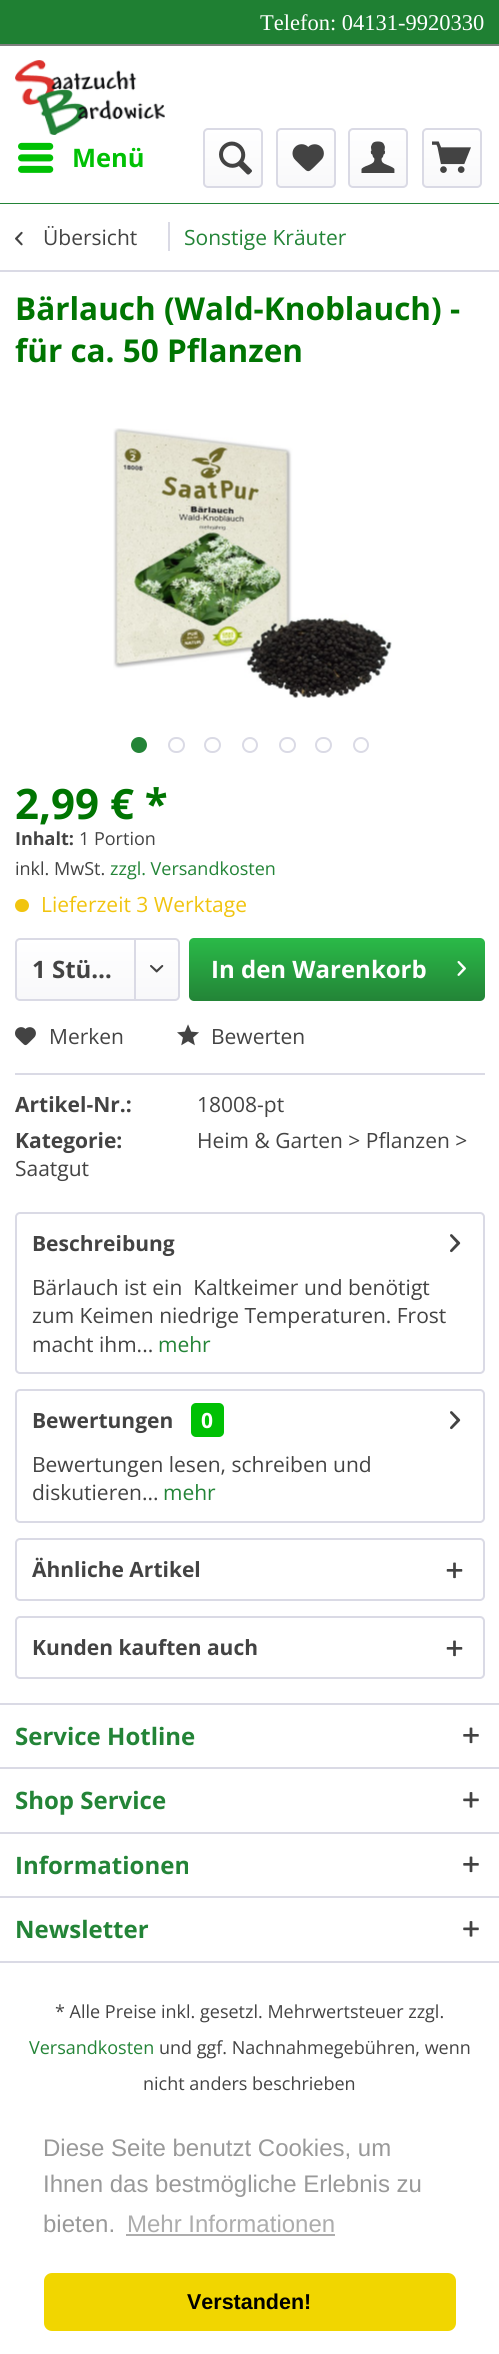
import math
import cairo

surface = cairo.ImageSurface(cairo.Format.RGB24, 499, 2354)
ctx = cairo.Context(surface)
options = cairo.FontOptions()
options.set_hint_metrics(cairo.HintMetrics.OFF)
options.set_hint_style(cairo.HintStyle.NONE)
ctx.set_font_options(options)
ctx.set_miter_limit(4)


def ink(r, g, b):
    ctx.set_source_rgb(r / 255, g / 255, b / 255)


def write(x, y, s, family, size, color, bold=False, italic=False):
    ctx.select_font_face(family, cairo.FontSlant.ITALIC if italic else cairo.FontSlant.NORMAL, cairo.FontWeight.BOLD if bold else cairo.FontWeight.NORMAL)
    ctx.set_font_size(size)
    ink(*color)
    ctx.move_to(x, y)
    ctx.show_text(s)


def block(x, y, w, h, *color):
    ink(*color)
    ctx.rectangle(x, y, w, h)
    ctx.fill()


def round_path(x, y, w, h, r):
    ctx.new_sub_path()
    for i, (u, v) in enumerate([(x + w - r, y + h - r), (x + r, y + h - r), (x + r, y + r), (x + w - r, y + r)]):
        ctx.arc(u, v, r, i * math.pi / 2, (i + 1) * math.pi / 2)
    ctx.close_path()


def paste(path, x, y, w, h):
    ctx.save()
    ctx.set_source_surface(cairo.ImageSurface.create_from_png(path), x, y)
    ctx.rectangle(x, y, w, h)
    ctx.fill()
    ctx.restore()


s1 = dict(family="Liberation Serif", size=22.5, color=(255, 255, 255))
s2 = dict(family="Open Sans", size=25.5, color=(0, 193, 4), bold=True)
s3 = dict(family="Open Sans", size=21, color=(67, 67, 67))
s4 = dict(family="Open Sans", size=21, color=(35, 132, 55))
s5 = dict(family="Open Sans", size=31.5, color=(0, 117, 2), bold=True)
s6 = dict(family="Open Sans", size=42, color=(0, 117, 2), bold=True)
s7 = dict(family="Open Sans", size=18, color=(67, 67, 67), bold=True)
s8 = dict(family="Open Sans", size=18, color=(67, 67, 67))
s9 = dict(family="Open Sans", size=18, color=(35, 132, 55))
s10 = dict(family="Open Sans", size=21, color=(241, 196, 15))
s11 = dict(family="Open Sans", size=24, color=(67, 67, 67), bold=True)
s12 = dict(family="Open Sans", size=24, color=(255, 255, 255), bold=True)
s13 = dict(family="Open Sans", size=21, color=(67, 67, 67), bold=True)
s14 = dict(family="Open Sans", size=21, color=(255, 255, 255), bold=True)
s15 = dict(family="Open Sans", size=24, color=(35, 132, 55), bold=True)
s16 = dict(family="Liberation Sans", size=24, color=(153, 153, 153))
s17 = dict(family="Liberation Sans", size=24, color=(173, 173, 173))
s18 = dict(family="Liberation Sans", size=21.5, color=(0, 0, 0), bold=True)

ink(255, 255, 255)
ctx.paint()
block(0, 0, 499, 44, 31, 128, 51)
block(0, 44, 499, 2, 127, 127, 127)
write(260, 30, "Telefon: 04131-9920330", **s1)
block(0, 203, 499, 1, 35, 132, 55)
paste("pic1.png", 15, 60, 150, 75)
paste("pic2.png", 18, 142, 36, 31)
write(72, 167, "Menü", **s2)
gradient = cairo.LinearGradient(233, 129, 233, 186)
gradient.add_color_stop_rgba(0, 1, 1, 1, 1)
gradient.add_color_stop_rgba(1, 0.973, 0.973, 0.98, 1)
ctx.set_source(gradient)
round_path(204, 129, 57, 57, 3)
ctx.fill()
round_path(204, 129, 58, 58, 4)
ink(218, 218, 229)
ctx.stroke()
paste("pic3.png", 219, 141, 33, 34)
gradient = cairo.LinearGradient(306, 129, 306, 186)
gradient.add_color_stop_rgba(0, 1, 1, 1, 1)
gradient.add_color_stop_rgba(1, 0.973, 0.973, 0.98, 1)
ctx.set_source(gradient)
round_path(278, 129, 57, 57, 3)
ctx.fill()
round_path(277, 129, 58, 58, 4)
ink(218, 218, 229)
ctx.stroke()
paste("pic4.png", 292, 144, 32, 28)
gradient = cairo.LinearGradient(378, 129, 378, 186)
gradient.add_color_stop_rgba(0, 1, 1, 1, 1)
gradient.add_color_stop_rgba(1, 0.973, 0.973, 0.98, 1)
ctx.set_source(gradient)
round_path(350, 129, 57, 57, 3)
ctx.fill()
round_path(349, 129, 58, 58, 4)
ink(218, 218, 229)
ctx.stroke()
paste("pic5.png", 361, 141, 34, 32)
gradient = cairo.LinearGradient(452, 129, 452, 186)
gradient.add_color_stop_rgba(0, 1, 1, 1, 1)
gradient.add_color_stop_rgba(1, 0.973, 0.973, 0.98, 1)
ctx.set_source(gradient)
round_path(423, 129, 57, 57, 3)
ctx.fill()
round_path(423, 129, 58, 58, 4)
ink(218, 218, 229)
ctx.stroke()
paste("pic6.png", 432, 141, 39, 32)
block(0, 270, 499, 2, 218, 218, 229)
paste("pic7.png", 15, 231, 8, 15)
write(43, 245, "Übersicht", **s3)
block(168, 222, 2, 29, 218, 218, 229)
write(184, 245, "Sonstige Kräuter", **s4)
write(15, 320, "Bärlauch (Wald-Knoblauch) -", **s5)
write(15, 362, "für ca. 50 Pflanzen", **s5)
paste("pic8.png", 113, 428, 279, 270)
ink(35, 132, 55)
ctx.arc(139, 745, 7, 0, 2 * math.pi)
ctx.fill_preserve()
ctx.stroke()
round_path(169, 738, 15, 14, 7)
ink(218, 218, 229)
ctx.stroke()
round_path(205, 738, 15, 14, 7)
ctx.stroke()
ctx.arc(250, 745, 7, 0, 2 * math.pi)
ctx.stroke()
round_path(280, 738, 15, 14, 7)
ctx.stroke()
round_path(316, 738, 15, 14, 7)
ctx.stroke()
ctx.arc(361, 745, 7, 0, 2 * math.pi)
ctx.stroke()
write(15, 819, "2,99 € *", **s6)
write(15, 845, "Inhalt:", **s7)
write(79, 845, "1 Portion", **s8)
write(15, 875, "inkl. MwSt.", **s8)
write(110, 875, "zzgl. Versandkosten", **s9)
ink(241, 196, 15)
round_path(15, 899, 14, 13, 6.5)
ctx.fill()
write(41, 912, "Lieferzeit 3 Werktage", **s10)
gradient = cairo.LinearGradient(98, 939, 98, 999)
gradient.add_color_stop_rgba(0, 1, 1, 1, 1)
gradient.add_color_stop_rgba(1, 0.973, 0.973, 0.98, 1)
ctx.set_source(gradient)
round_path(17, 939, 162, 60, 3)
ctx.fill()
round_path(16, 939, 163, 61, 4)
ink(218, 218, 229)
ctx.stroke()
write(32, 978, "1 Stü…", **s11)
block(134, 939, 2, 60, 218, 218, 229)
paste("pic9.png", 150, 965, 14, 8)
gradient = cairo.LinearGradient(337, 938, 337, 1001)
gradient.add_color_stop_rgba(0, 0.165, 0.729, 0.282, 1)
gradient.add_color_stop_rgba(1, 0.137, 0.518, 0.216, 1)
ctx.set_source(gradient)
round_path(189, 938, 296, 63, 5)
ctx.fill()
write(211, 978, "In den Warenkorb", **s12)
paste("pic10.png", 457, 961, 9, 15)
block(15, 1073, 470, 2, 218, 218, 229)
paste("pic11.png", 15, 1027, 21, 19)
write(49, 1044, "Merken", **s3)
paste("pic12.png", 177, 1024, 22, 22)
write(211, 1044, "Bewerten", **s3)
write(15, 1112, "Artikel-Nr.:", **s13)
write(197, 1112, "18008-pt", **s3)
write(15, 1148, "Kategorie:", **s13)
write(197, 1148, "Heim & Garten > Pflanzen >", **s3)
write(15, 1176, "Saatgut", **s3)
round_path(16, 1213, 468, 160, 4)
ink(218, 218, 229)
ctx.stroke()
write(32, 1251, "Beschreibung", **s13)
paste("pic13.png", 450, 1234, 11, 19)
write(32, 1295, "Bärlauch ist ein  Kaltkeimer und benötigt", **s3)
write(32, 1323, "zum Keimen niedrige Temperaturen. Frost", **s3)
write(32, 1352, "macht ihm...", **s3)
write(158, 1352, "mehr", **s4)
round_path(16, 1390, 468, 132, 4)
ink(218, 218, 229)
ctx.stroke()
write(32, 1428, "Bewertungen", **s13)
paste("pic13.png", 450, 1411, 11, 19)
ink(0, 193, 4)
round_path(191, 1403, 33, 34, 5)
ctx.fill()
write(201, 1428, "0", **s14)
write(32, 1472, "Bewertungen lesen, schreiben und", **s3)
write(32, 1500, "diskutieren...", **s3)
write(163, 1500, "mehr", **s4)
round_path(16, 1539, 468, 61, 4)
ink(218, 218, 229)
ctx.stroke()
write(32, 1577, "Ähnliche Artikel", **s13)
paste("pic14.png", 446, 1562, 17, 17)
round_path(16, 1617, 468, 61, 4)
ink(218, 218, 229)
ctx.stroke()
write(32, 1655, "Kunden kauften auch", **s13)
paste("pic14.png", 446, 1640, 17, 17)
block(0, 1703, 499, 2, 218, 218, 229)
write(15, 1745, "Service Hotline", **s15)
paste("pic15.png", 463, 1727, 16, 17)
block(0, 1767, 499, 2, 218, 218, 229)
write(15, 1809, "Shop Service", **s15)
paste("pic16.png", 463, 1792, 16, 16)
block(0, 1832, 499, 2, 218, 218, 229)
write(15, 1874, "Informationen", **s15)
paste("pic15.png", 463, 1856, 16, 17)
block(0, 1896, 499, 2, 218, 218, 229)
block(0, 1961, 499, 2, 218, 218, 229)
write(15, 1938, "Newsletter", **s15)
paste("pic16.png", 463, 1921, 16, 16)
write(55, 2018, "* Alle Preise inkl. gesetzl. Mehrwertsteuer zzgl.", **s8)
write(29, 2054, "Versandkosten", **s9)
write(159, 2054, "und ggf. Nachnahmegebühren, wenn", **s8)
write(143, 2090, "nicht anders beschrieben", **s8)
write(43, 2156, "Diese Seite benutzt Cookies, um", **s16)
write(43, 2192, "Ihnen das bestmögliche Erlebnis zu", **s16)
write(43, 2232, "bieten.", **s16)
write(127, 2232, "Mehr Informationen", **s17)
block(126, 2234, 209, 2, 173, 173, 173)
ink(241, 214, 0)
round_path(44, 2273, 412, 58, 8)
ctx.fill()
write(187, 2309, "Verstanden!", **s18)
surface.write_to_png("screenshot.png")
